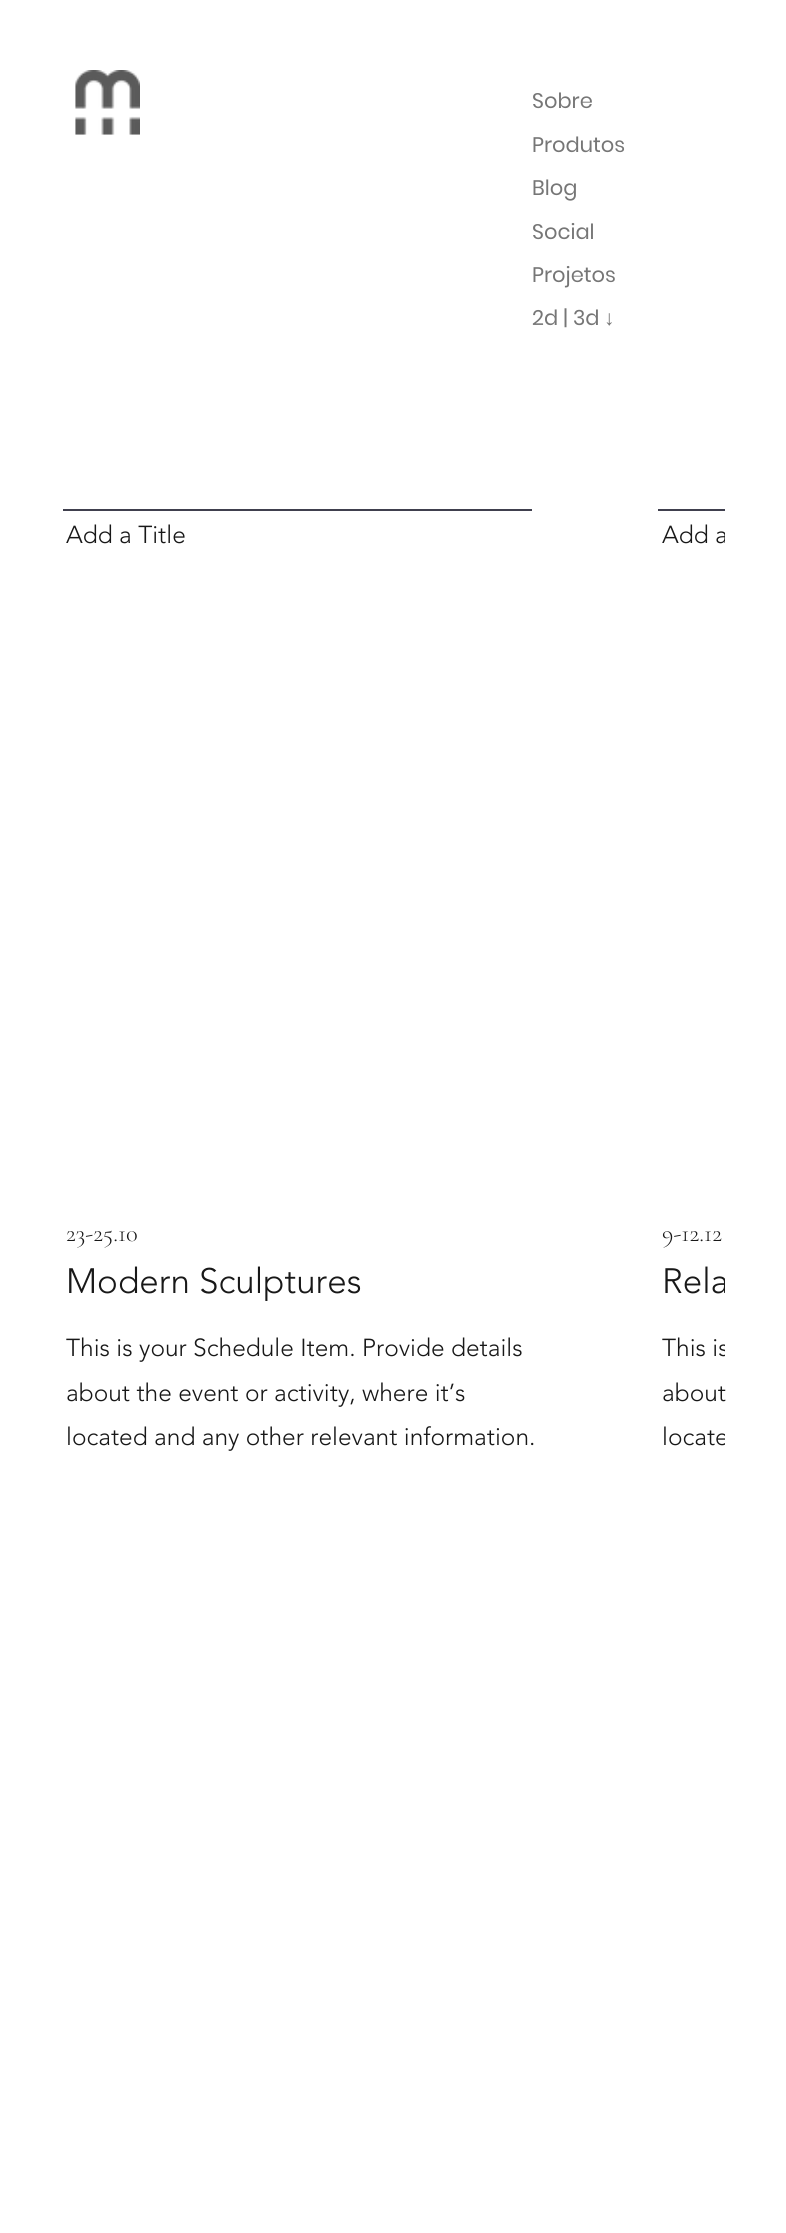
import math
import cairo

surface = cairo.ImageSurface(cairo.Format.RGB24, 786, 2233)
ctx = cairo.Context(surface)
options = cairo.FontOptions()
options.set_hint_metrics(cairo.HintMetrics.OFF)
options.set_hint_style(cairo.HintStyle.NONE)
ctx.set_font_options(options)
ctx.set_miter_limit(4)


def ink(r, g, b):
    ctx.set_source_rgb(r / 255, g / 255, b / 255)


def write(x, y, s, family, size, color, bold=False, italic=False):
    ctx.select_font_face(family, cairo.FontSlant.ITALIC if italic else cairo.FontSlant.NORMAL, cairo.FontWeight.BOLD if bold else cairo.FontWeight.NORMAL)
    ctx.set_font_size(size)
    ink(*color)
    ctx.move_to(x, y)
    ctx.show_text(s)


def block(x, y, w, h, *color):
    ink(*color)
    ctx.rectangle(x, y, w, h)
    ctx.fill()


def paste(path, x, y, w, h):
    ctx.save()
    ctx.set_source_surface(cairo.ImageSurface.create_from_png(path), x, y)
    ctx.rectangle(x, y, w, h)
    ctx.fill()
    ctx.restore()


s1 = dict(family="Poppins", size=21, color=(118, 118, 118))
s2 = dict(family="Liberation Sans", size=21, color=(118, 118, 118), bold=True)
s3 = dict(family="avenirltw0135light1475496 Light", size=24.5, color=(24, 24, 24))
s4 = dict(family="Cormorant Garamond Light", size=24.5, color=(24, 24, 24))
s5 = dict(family="avenirltw0135light1475496 Light", size=35, color=(24, 24, 24))

ink(255, 255, 255)
ctx.paint()
paste("pic1.png", 75, 70, 65, 65)
write(532, 108, "Sobre", **s1)
write(532, 152, "Produtos", **s1)
write(532, 195, "Blog", **s1)
write(532, 239, "Social", **s1)
write(532, 282, "Projetos", **s1)
write(532, 325, "2d | 3d", **s1)
write(604, 325, "↓", **s2)
block(63, 509, 469, 2, 64, 64, 78)
write(66, 543, "Add a Title", **s3)
write(66, 1241, "23-25.10", **s4)
write(66, 1293, "Modern Sculptures", **s5)
write(66, 1356, "This is your Schedule Item. Provide details", **s3)
write(66, 1401, "about the event or activity, where it’s", **s3)
write(66, 1445, "located and any other relevant information.", **s3)
block(658, 509, 67, 2, 64, 64, 78)
ctx.save()
ctx.rectangle(63, 509, 662, 951)
ctx.clip()
write(662, 543, "Add a", **s3)
ctx.restore()
write(662, 1241, "9-12.12", **s4)
ctx.save()
ctx.rectangle(63, 509, 662, 951)
ctx.clip()
write(662, 1293, "Rela", **s5)
write(662, 1356, "This is", **s3)
ctx.restore()
write(662, 1401, "about", **s3)
ctx.save()
ctx.rectangle(63, 509, 662, 951)
ctx.clip()
write(662, 1445, "locate", **s3)
ctx.restore()
surface.write_to_png("screenshot.png")
